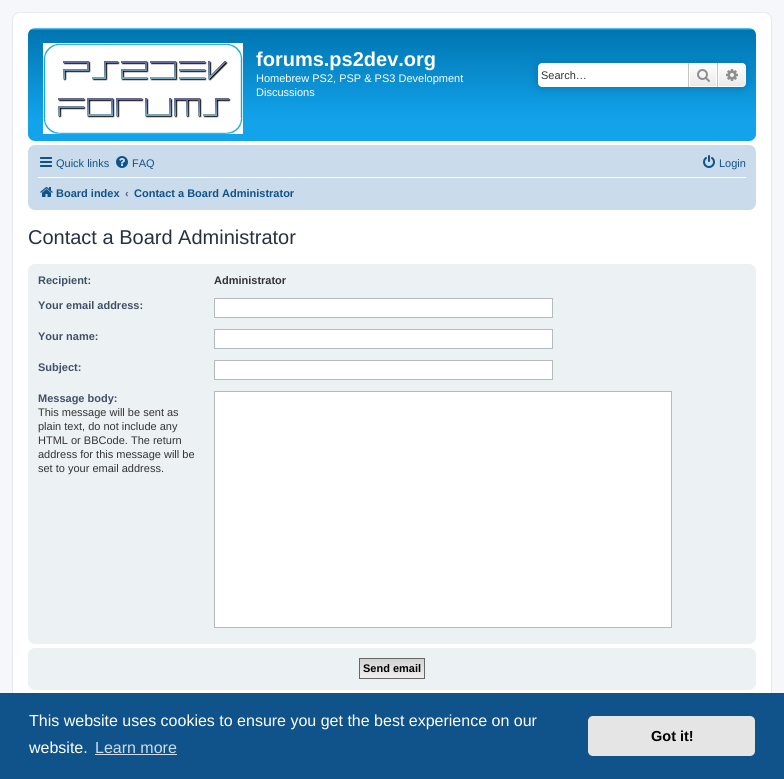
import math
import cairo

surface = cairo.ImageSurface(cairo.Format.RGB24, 784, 779)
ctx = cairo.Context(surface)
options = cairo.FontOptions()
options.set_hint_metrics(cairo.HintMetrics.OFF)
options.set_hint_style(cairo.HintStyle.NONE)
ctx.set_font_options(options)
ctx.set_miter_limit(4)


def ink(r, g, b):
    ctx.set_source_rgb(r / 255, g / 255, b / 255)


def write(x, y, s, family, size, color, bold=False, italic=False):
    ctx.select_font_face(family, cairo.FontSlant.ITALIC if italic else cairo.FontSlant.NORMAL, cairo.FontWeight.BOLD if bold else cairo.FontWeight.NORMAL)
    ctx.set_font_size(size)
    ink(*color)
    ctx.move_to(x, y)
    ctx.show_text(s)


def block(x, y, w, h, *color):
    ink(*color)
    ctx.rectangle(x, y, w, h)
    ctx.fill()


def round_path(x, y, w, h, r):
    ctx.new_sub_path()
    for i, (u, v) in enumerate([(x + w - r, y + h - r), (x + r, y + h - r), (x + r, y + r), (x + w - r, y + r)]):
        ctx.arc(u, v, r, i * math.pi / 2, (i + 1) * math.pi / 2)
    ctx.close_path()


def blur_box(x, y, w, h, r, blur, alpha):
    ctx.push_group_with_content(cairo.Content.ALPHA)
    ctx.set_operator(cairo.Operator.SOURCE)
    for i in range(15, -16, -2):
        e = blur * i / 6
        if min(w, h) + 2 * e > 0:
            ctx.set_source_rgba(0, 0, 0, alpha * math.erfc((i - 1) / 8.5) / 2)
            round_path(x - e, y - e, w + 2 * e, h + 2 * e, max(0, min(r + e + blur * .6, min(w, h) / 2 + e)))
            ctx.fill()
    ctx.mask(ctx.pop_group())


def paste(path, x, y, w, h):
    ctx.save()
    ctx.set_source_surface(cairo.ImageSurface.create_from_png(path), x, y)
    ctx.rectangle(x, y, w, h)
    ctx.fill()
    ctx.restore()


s1 = dict(family="Liberation Sans", size=20, color=(255, 255, 255), bold=True)
s2 = dict(family="Liberation Sans", size=11, color=(255, 255, 255))
s3 = dict(family="Liberation Sans", size=11, color=(51, 51, 51))
s4 = dict(family="Liberation Sans", size=11, color=(16, 82, 137))
s5 = dict(family="Liberation Sans", size=11, color=(16, 82, 137), bold=True)
s6 = dict(family="Liberation Sans", size=11, color=(83, 100, 130), bold=True)
s7 = dict(family="Liberation Sans", size=20, color=(40, 49, 63))
s8 = dict(family="Liberation Sans", size=11, color=(66, 80, 103), bold=True)
s9 = dict(family="Liberation Sans", size=11, color=(51, 51, 51), bold=True)
s10 = dict(family="Liberation Sans", size=11, color=(0, 0, 0), bold=True)
s11 = dict(family="Liberation Sans", size=16, color=(255, 255, 255))
s12 = dict(family="Liberation Sans", size=16, color=(207, 221, 232))
s13 = dict(family="Liberation Sans", size=14.5, color=(0, 0, 0), bold=True)

ink(245, 247, 250)
ctx.paint()
ink(255, 255, 255)
round_path(12.5, 12.5, 759, 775, 7.5)
ctx.fill_preserve()
ink(230, 233, 237)
ctx.set_line_width(1)
ctx.stroke()
gradient = cairo.LinearGradient(392, 28, 392, 141)
gradient.add_color_stop_rgba(0, 0.416, 0.808, 1, 1)
gradient.add_color_stop_rgba(0.02, 0, 0.463, 0.694, 1)
gradient.add_color_stop_rgba(0.81, 0.071, 0.639, 0.922, 1)
gradient.add_color_stop_rgba(1, 0.071, 0.639, 0.922, 1)
ctx.set_source(gradient)
round_path(28, 28, 728, 113, 7)
ctx.fill()
paste("pic1.png", 43, 43, 200, 91)
write(256, 66, "forums.ps2dev.org", **s1)
write(256, 82, "Homebrew PS2, PSP & PS3 Development", **s2)
write(256, 96, "Discussions", **s2)
ink(0, 117, 176)
blur_box(538, 63, 208, 24, 4, 5, 1)
ink(255, 255, 255)
ctx.new_path()
ctx.move_to(542, 63)
ctx.line_to(688, 63)
ctx.line_to(688, 87)
ctx.line_to(542, 87)
ctx.curve_to(540, 87, 538, 85, 538, 83)
ctx.line_to(538, 67)
ctx.curve_to(538, 65, 540, 63, 542, 63)
ctx.close_path()
ctx.fill()
write(541, 79, "Search…", **s3)
gradient = cairo.LinearGradient(703, 63, 703, 87)
gradient.add_color_stop_rgba(0, 1, 1, 1, 1)
gradient.add_color_stop_rgba(1, 0.914, 0.914, 0.914, 1)
ctx.set_source(gradient)
ctx.rectangle(690, 64, 26, 22)
ctx.fill()
ctx.rectangle(689.5, 63.5, 27, 23)
ink(255, 255, 255)
ctx.stroke()
block(717, 63, 1, 24, 199, 195, 191)
block(688, 63, 1, 24, 199, 195, 191)
paste("pic2.png", 697, 69, 13, 13)
gradient = cairo.LinearGradient(732, 63, 732, 87)
gradient.add_color_stop_rgba(0, 1, 1, 1, 1)
gradient.add_color_stop_rgba(1, 0.914, 0.914, 0.914, 1)
ctx.set_source(gradient)
ctx.new_path()
ctx.move_to(718.5, 63.5)
ctx.line_to(742, 63.5)
ctx.curve_to(744, 63.5, 745.5, 65, 745.5, 67)
ctx.line_to(745.5, 83)
ctx.curve_to(745.5, 85, 744, 86.5, 742, 86.5)
ctx.line_to(718.5, 86.5)
ctx.close_path()
ctx.fill_preserve()
ink(255, 255, 255)
ctx.stroke()
paste("pic3.png", 726, 69, 12, 12)
ink(202, 220, 235)
round_path(28, 145, 728, 65, 7)
ctx.fill()
paste("pic4.png", 40, 157, 12, 10)
write(56, 167, "Quick links", **s4)
paste("pic5.png", 116, 156, 12, 12)
write(132, 167, "FAQ", **s4)
paste("pic6.png", 703, 155, 12, 13)
write(719, 167, "Login", **s4)
block(38, 177, 708, 1, 255, 255, 255)
paste("pic7.png", 40, 187, 13, 10)
write(56, 197, "Board index", **s5)
write(125, 197, "‹", **s6)
write(134, 197, "Contact a Board Administrator", **s5)
write(28, 244, "Contact a Board Administrator", **s7)
ink(236, 241, 243)
round_path(28, 264, 728, 380, 7)
ctx.fill()
write(38, 284, "Recipient:", **s8)
write(214, 284, "Administrator", **s9)
write(38, 309, "Your email address:", **s8)
ink(255, 255, 255)
ctx.rectangle(214.5, 298.5, 338, 19)
ctx.fill_preserve()
ink(180, 186, 192)
ctx.stroke()
write(38, 340, "Your name:", **s8)
ink(255, 255, 255)
ctx.rectangle(214.5, 329.5, 338, 19)
ctx.fill_preserve()
ink(180, 186, 192)
ctx.stroke()
write(38, 371, "Subject:", **s8)
ink(255, 255, 255)
ctx.rectangle(214.5, 360.5, 338, 19)
ctx.fill_preserve()
ink(180, 186, 192)
ctx.stroke()
write(38, 402, "Message body:", **s8)
write(38, 416, "This message will be sent as", **s3)
write(38, 430, "plain text, do not include any", **s3)
write(38, 444, "HTML or BBCode. The return", **s3)
write(38, 458, "address for this message will be", **s3)
write(38, 472, "set to your email address.", **s3)
ink(255, 255, 255)
ctx.rectangle(214.5, 391.5, 457, 236)
ctx.fill_preserve()
ink(180, 186, 192)
ctx.stroke()
ink(236, 241, 243)
round_path(28, 648, 728, 42, 7)
ctx.fill()
gradient = cairo.LinearGradient(392, 659, 392, 678)
gradient.add_color_stop_rgba(0, 0.824, 0.824, 0.824, 1)
gradient.add_color_stop_rgba(1, 0.937, 0.937, 0.937, 1)
ctx.set_source(gradient)
ctx.rectangle(360, 659, 64, 19)
ctx.fill()
ctx.rectangle(359.5, 658.5, 65, 20)
ink(102, 102, 102)
ctx.stroke()
write(363, 672, "Send email", **s10)
block(0, 693, 784, 86, 15, 83, 138)
write(29, 726, "This website uses cookies to ensure you get the best experience on our", **s11)
write(29, 753, "website.", **s11)
write(95, 753, "Learn more", **s12)
block(95, 754, 82, 1, 207, 221, 232)
ink(229, 229, 229)
round_path(588, 716, 167, 40, 5)
ctx.fill()
write(651, 741, "Got it!", **s13)
surface.write_to_png("screenshot.png")
